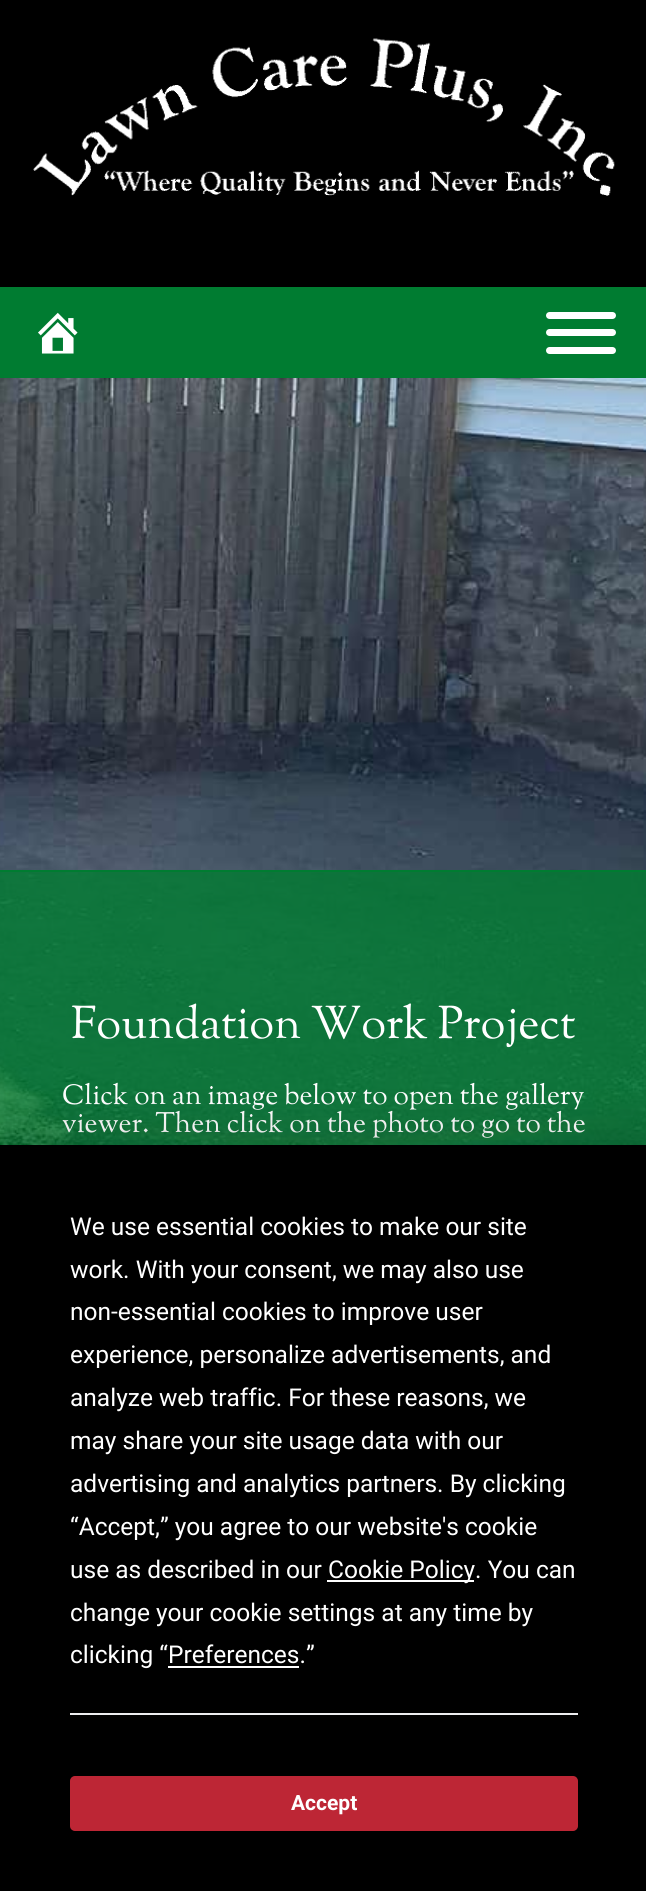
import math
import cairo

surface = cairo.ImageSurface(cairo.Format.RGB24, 646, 1891)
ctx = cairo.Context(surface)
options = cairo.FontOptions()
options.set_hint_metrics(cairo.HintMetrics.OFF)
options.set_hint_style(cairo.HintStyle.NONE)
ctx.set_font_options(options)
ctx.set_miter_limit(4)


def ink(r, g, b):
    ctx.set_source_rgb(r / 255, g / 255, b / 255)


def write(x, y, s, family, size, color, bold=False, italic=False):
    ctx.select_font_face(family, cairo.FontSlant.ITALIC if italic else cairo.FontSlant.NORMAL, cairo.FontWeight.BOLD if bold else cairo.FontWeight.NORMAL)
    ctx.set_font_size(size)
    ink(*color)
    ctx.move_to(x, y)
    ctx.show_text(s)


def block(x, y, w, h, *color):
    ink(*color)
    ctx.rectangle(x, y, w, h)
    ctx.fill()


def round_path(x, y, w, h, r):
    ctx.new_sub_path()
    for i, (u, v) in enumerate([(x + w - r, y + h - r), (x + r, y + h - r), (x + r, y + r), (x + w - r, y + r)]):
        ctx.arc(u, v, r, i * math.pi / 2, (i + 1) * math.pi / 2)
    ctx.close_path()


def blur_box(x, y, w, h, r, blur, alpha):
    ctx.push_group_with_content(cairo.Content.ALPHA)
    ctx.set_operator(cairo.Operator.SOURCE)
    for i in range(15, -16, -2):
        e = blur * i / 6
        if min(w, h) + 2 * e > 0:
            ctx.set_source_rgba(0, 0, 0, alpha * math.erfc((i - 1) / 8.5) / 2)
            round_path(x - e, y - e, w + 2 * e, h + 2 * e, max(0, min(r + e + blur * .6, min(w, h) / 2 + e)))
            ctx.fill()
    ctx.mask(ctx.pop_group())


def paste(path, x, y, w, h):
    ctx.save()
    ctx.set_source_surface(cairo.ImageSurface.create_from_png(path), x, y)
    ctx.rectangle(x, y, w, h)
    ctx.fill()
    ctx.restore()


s1 = dict(family="Sorts Mill Goudy", size=45.5, color=(255, 255, 255))
s2 = dict(family="Sorts Mill Goudy", size=28, color=(255, 255, 255))
s3 = dict(family="Roboto", size=24.5, color=(255, 255, 255))
s4 = dict(family="Roboto", size=21, color=(255, 255, 255), bold=True)

ink(255, 255, 255)
ctx.paint()
block(0, 0, 646, 287, 0, 0, 0)
paste("pic1.png", 33, 38, 582, 158)
block(0, 287, 646, 91, 0, 124, 49)
paste("pic2.png", 38, 312, 40, 42)
ink(255, 255, 255)
round_path(546, 312, 70, 7, 3.5)
ctx.fill()
round_path(546, 329, 70, 7, 3.5)
ctx.fill()
round_path(546, 347, 70, 7, 3.5)
ctx.fill()
paste("pic3.png", 0, 378, 646, 767)
ctx.set_source_rgba(0, 0.486, 0.192, 0.8)
ctx.rectangle(0, 872, 646, 273)
ctx.fill()
block(0, 870, 646, 2, 0, 124, 49)
write(71, 1038, "Foundation Work Project", **s1)
write(62, 1104, "Click on an image below to open the gallery", **s2)
write(62, 1132, "viewer. Then click on the photo to go to the", **s2)
ink(0, 0, 0)
blur_box(0, 1145, 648, 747, 0, 30.5, 0.25)
block(0, 1145, 646, 746, 0, 0, 0)
write(70, 1235, "We use essential cookies to make our site", **s3)
write(70, 1278, "work. With your consent, we may also use", **s3)
write(70, 1320, "non-essential cookies to improve user", **s3)
write(70, 1363, "experience, personalize advertisements, and", **s3)
write(70, 1406, "analyze web traffic. For these reasons, we", **s3)
write(70, 1449, "may share your site usage data with our", **s3)
write(70, 1492, "advertising and analytics partners. By clicking", **s3)
write(70, 1535, "“Accept,” you agree to our website's cookie", **s3)
write(70, 1578, "use as described in our", **s3)
block(327, 1580, 147, 2, 255, 255, 255)
write(328, 1578, "Cookie Policy. You can", **s3)
write(70, 1621, "change your cookie settings at any time by", **s3)
write(70, 1663, "clicking “Preferences.”", **s3)
block(168, 1666, 131, 2, 255, 255, 255)
block(70, 1713, 508, 2, 237, 237, 239)
ink(189, 38, 53)
round_path(71, 1777, 506, 53, 4)
ctx.fill_preserve()
ctx.stroke()
write(291, 1810, "Accept", **s4)
surface.write_to_png("screenshot.png")
